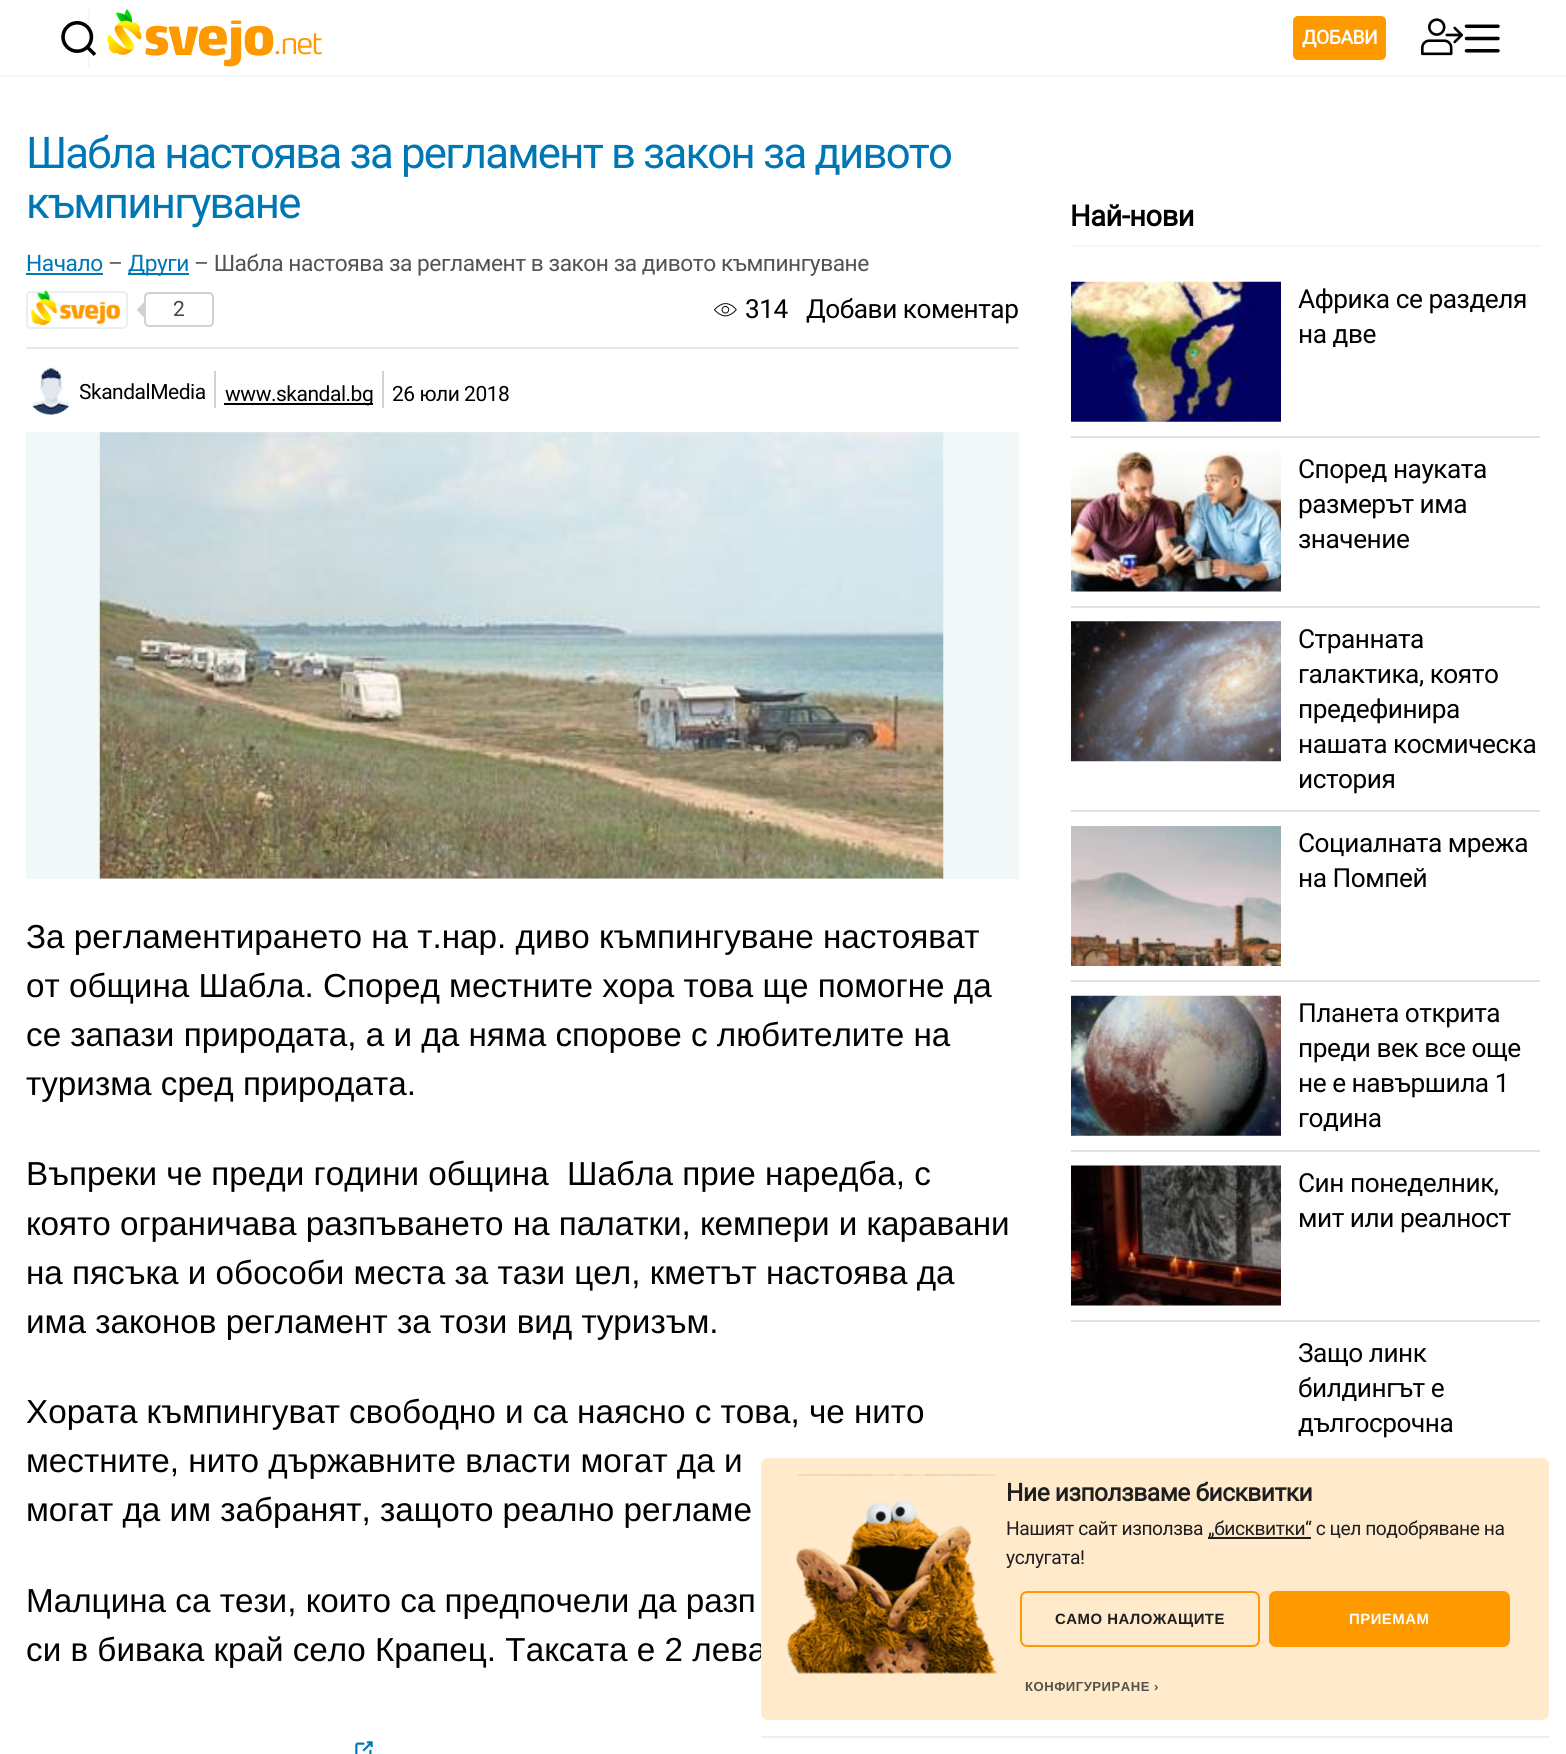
import math
import cairo

surface = cairo.ImageSurface(cairo.Format.RGB24, 1566, 1754)
ctx = cairo.Context(surface)
options = cairo.FontOptions()
options.set_hint_metrics(cairo.HintMetrics.OFF)
options.set_hint_style(cairo.HintStyle.NONE)
ctx.set_font_options(options)
ctx.set_miter_limit(4)


def ink(r, g, b):
    ctx.set_source_rgb(r / 255, g / 255, b / 255)


def write(x, y, s, family, size, color, bold=False, italic=False):
    ctx.select_font_face(family, cairo.FontSlant.ITALIC if italic else cairo.FontSlant.NORMAL, cairo.FontWeight.BOLD if bold else cairo.FontWeight.NORMAL)
    ctx.set_font_size(size)
    ink(*color)
    ctx.move_to(x, y)
    ctx.show_text(s)


def write_spaced(x, y, s, letter, word):
    ctx.move_to(x, y)
    for ch in s:
        ctx.show_text(ch)
        ctx.rel_move_to(letter + word * (ch == ' '), 0)


def block(x, y, w, h, *color):
    ink(*color)
    ctx.rectangle(x, y, w, h)
    ctx.fill()


def round_path(x, y, w, h, r):
    ctx.new_sub_path()
    for i, (u, v) in enumerate([(x + w - r, y + h - r), (x + r, y + h - r), (x + r, y + r), (x + w - r, y + r)]):
        ctx.arc(u, v, r, i * math.pi / 2, (i + 1) * math.pi / 2)
    ctx.close_path()


def paste(path, x, y, w, h):
    ctx.save()
    ctx.set_source_surface(cairo.ImageSurface.create_from_png(path), x, y)
    ctx.rectangle(x, y, w, h)
    ctx.fill()
    ctx.restore()


s1 = dict(family="Liberation Sans", size=33.25, color=(0, 0, 0))

ink(255, 255, 255)
ctx.paint()
block(0, 75, 1566, 2, 242, 247, 248)
block(88, 9, 2, 58, 242, 247, 248)
paste("pic1.png", 61, 21, 35, 35)
paste("pic2.png", 107, 9, 215, 58)
ink(255, 153, 0)
round_path(1293, 16, 93, 44, 5)
ctx.fill()
ctx.select_font_face("Roboto", cairo.FontSlant.NORMAL, cairo.FontWeight.BOLD)
ctx.set_font_size(19.25)
ink(255, 255, 255)
write_spaced(1302, 44, "ДОБАВИ", -0.47, 0)
paste("pic3.png", 1421, 18, 42, 38)
paste("pic4.png", 1464, 24, 36, 29)
ctx.select_font_face("Roboto")
ctx.set_font_size(43.75)
ink(0, 119, 181)
write_spaced(26, 168, "Шабла настоява за регламент в закон за дивото", -1.8, 0)
write_spaced(26, 218, "къмпингуване", -1.8, 0)
ctx.set_font_size(22.75)
write_spaced(26, 271, "Начало", -0.47, 0)
block(26, 273, 77, 2, 0, 119, 181)
ink(83, 83, 83)
write_spaced(108, 271, "–", -0.47, 0)
block(128, 273, 61, 2, 0, 119, 181)
write_spaced(128, 271, "Други", -0.47, 0)
ink(83, 83, 83)
write_spaced(194, 271, "– Шабла настоява за регламент в закон за дивото къмпингуване", -0.47, 0)
round_path(27, 292, 100, 36, 4)
ink(233, 240, 242)
ctx.stroke()
paste("pic5.png", 31, 290, 90, 35)
round_path(145, 293, 68, 33, 4)
ink(209, 209, 209)
ctx.stroke()
ctx.new_path()
ctx.move_to(145, 301)
ctx.line_to(145, 318.5)
ctx.line_to(136.5, 310)
ctx.close_path()
ctx.fill()
ctx.set_font_size(21)
ink(68, 68, 68)
write_spaced(173, 316, "2", -0.47, 0)
paste("pic6.png", 714, 303, 23, 14)
ctx.set_font_size(26.25)
ink(0, 0, 0)
write_spaced(745, 318, "314", -0.47, 0)
write_spaced(806, 318, "Добави коментар", -0.47, 0)
block(26, 347, 993, 2, 232, 232, 232)
paste("pic7.png", 32, 367, 39, 48)
ctx.set_font_size(21)
ink(0, 0, 0)
write_spaced(79, 399, "SkandalMedia", -0.47, 0)
block(214, 371, 2, 37, 209, 209, 209)
block(224, 403, 149, 2, 0, 0, 0)
write_spaced(225, 401, "www.skandal.bg", -0.47, 0)
block(382, 371, 2, 37, 209, 209, 209)
ink(0, 0, 0)
write_spaced(392, 401, "26 юли 2018", -0.47, 0)
block(26, 432, 993, 447, 242, 247, 248)
paste("pic8.png", 99, 432, 845, 447)
write(26, 948, "За регламентирането на т.нар. диво къмпингуване настояват", **s1)
write(26, 997, "от община Шабла. Според местните хора това ще помогне да", **s1)
write(26, 1046, "се запази природата, а и да няма спорове с любителите на", **s1)
write(26, 1095, "туризма сред природата.", **s1)
write(26, 1185, "Въпреки че преди години община  Шабла прие наредба, с", **s1)
write(26, 1235, "която ограничава разпъването на палатки, кемпери и каравани", **s1)
write(26, 1284, "на пясъка и обособи места за тази цел, кметът настоява да", **s1)
write(26, 1333, "има законов регламент за този вид туризъм.", **s1)
write(26, 1423, "Хората къмпингуват свободно и са наясно с това, че нито", **s1)
write(26, 1472, "местните, нито държавните власти могат да и", **s1)
write(26, 1521, "могат да им забранят, защото реално регламе", **s1)
write(26, 1612, "Малцина са тези, които са предпочели да разп", **s1)
write(26, 1661, "си в бивака край село Крапец. Таксата е 2 лева", **s1)
paste("pic9.png", 355, 1741, 18, 13)
block(1071, 245, 469, 2, 242, 247, 248)
ctx.select_font_face("Roboto", cairo.FontSlant.NORMAL, cairo.FontWeight.BOLD)
ctx.set_font_size(29)
ink(0, 0, 0)
write_spaced(1070, 226, "Най-нови", -0.47, 0)
block(1071, 436, 469, 2, 225, 225, 225)
paste("pic10.png", 1071, 281, 210, 141)
ctx.select_font_face("Roboto")
ctx.set_font_size(26.25)
ink(0, 0, 0)
write_spaced(1298, 308, "Африка се разделя", -0.47, 0)
write_spaced(1298, 343, "на две", -0.47, 0)
block(1071, 606, 469, 2, 225, 225, 225)
paste("pic11.png", 1071, 451, 210, 141)
ink(0, 0, 0)
write_spaced(1298, 478, "Според науката", -0.47, 0)
write_spaced(1298, 513, "размерът има", -0.47, 0)
write_spaced(1298, 548, "значение", -0.47, 0)
block(1071, 810, 469, 2, 225, 225, 225)
paste("pic12.png", 1071, 621, 210, 141)
ink(0, 0, 0)
write_spaced(1298, 648, "Странната", -0.47, 0)
write_spaced(1298, 683, "галактика, която", -0.47, 0)
write_spaced(1298, 718, "предефинира", -0.47, 0)
write_spaced(1298, 753, "нашата космическа", -0.47, 0)
write_spaced(1298, 788, "история", -0.47, 0)
block(1071, 980, 469, 2, 225, 225, 225)
paste("pic13.png", 1071, 826, 210, 140)
ink(0, 0, 0)
write_spaced(1298, 852, "Социалната мрежа", -0.47, 0)
write_spaced(1298, 887, "на Помпей", -0.47, 0)
block(1071, 1150, 469, 2, 225, 225, 225)
paste("pic14.png", 1071, 995, 210, 141)
ink(0, 0, 0)
write_spaced(1298, 1022, "Планета открита", -0.47, 0)
write_spaced(1298, 1057, "преди век все още", -0.47, 0)
write_spaced(1298, 1092, "не е навършила 1", -0.47, 0)
write_spaced(1298, 1127, "година", -0.47, 0)
block(1071, 1320, 469, 2, 225, 225, 225)
paste("pic15.png", 1071, 1165, 210, 141)
ink(0, 0, 0)
write_spaced(1298, 1192, "Син понеделник,", -0.47, 0)
write_spaced(1298, 1227, "мит или реалност", -0.47, 0)
write_spaced(1298, 1362, "Защо линк", -0.47, 0)
write_spaced(1298, 1397, "билдингът е", -0.47, 0)
write_spaced(1298, 1432, "дългосрочна", -0.47, 0)
ink(255, 234, 203)
round_path(761, 1458, 788, 262, 7)
ctx.fill()
paste("pic16.png", 787, 1474, 210, 200)
ctx.select_font_face("Roboto", cairo.FontSlant.NORMAL, cairo.FontWeight.BOLD)
ctx.set_font_size(24.5)
ink(30, 30, 30)
write_spaced(1006, 1501, "Ние използваме бисквитки", -0.47, 0)
ctx.select_font_face("Roboto")
ctx.set_font_size(19.25)
write_spaced(1006, 1535, "Нашият сайт използва", -0.47, 0)
block(1208, 1537, 103, 2, 30, 30, 30)
write_spaced(1208, 1535, "„бисквитки“ с цел подобряване на", -0.47, 0)
write_spaced(1006, 1564, "услугата!", -0.47, 0)
round_path(1021, 1592, 238, 54, 6)
ink(255, 153, 0)
ctx.stroke()
ctx.select_font_face("Liberation Sans", cairo.FontSlant.NORMAL, cairo.FontWeight.BOLD)
ctx.set_font_size(14.9)
ink(30, 30, 30)
write_spaced(1055, 1624, "САМО НАЛОЖАЩИТЕ", 0.5, 0)
ink(255, 153, 0)
round_path(1270, 1592, 239, 54, 6)
ctx.fill_preserve()
ctx.stroke()
ink(255, 255, 255)
write_spaced(1349, 1624, "ПРИЕМАМ", 0.5, 0)
ctx.set_font_size(13.1)
ink(86, 81, 73)
write_spaced(1025, 1691, "КОНФИГУРИРАНЕ ›", 0.5, 0)
block(761, 1736, 788, 2, 238, 238, 238)
surface.write_to_png("screenshot.png")
